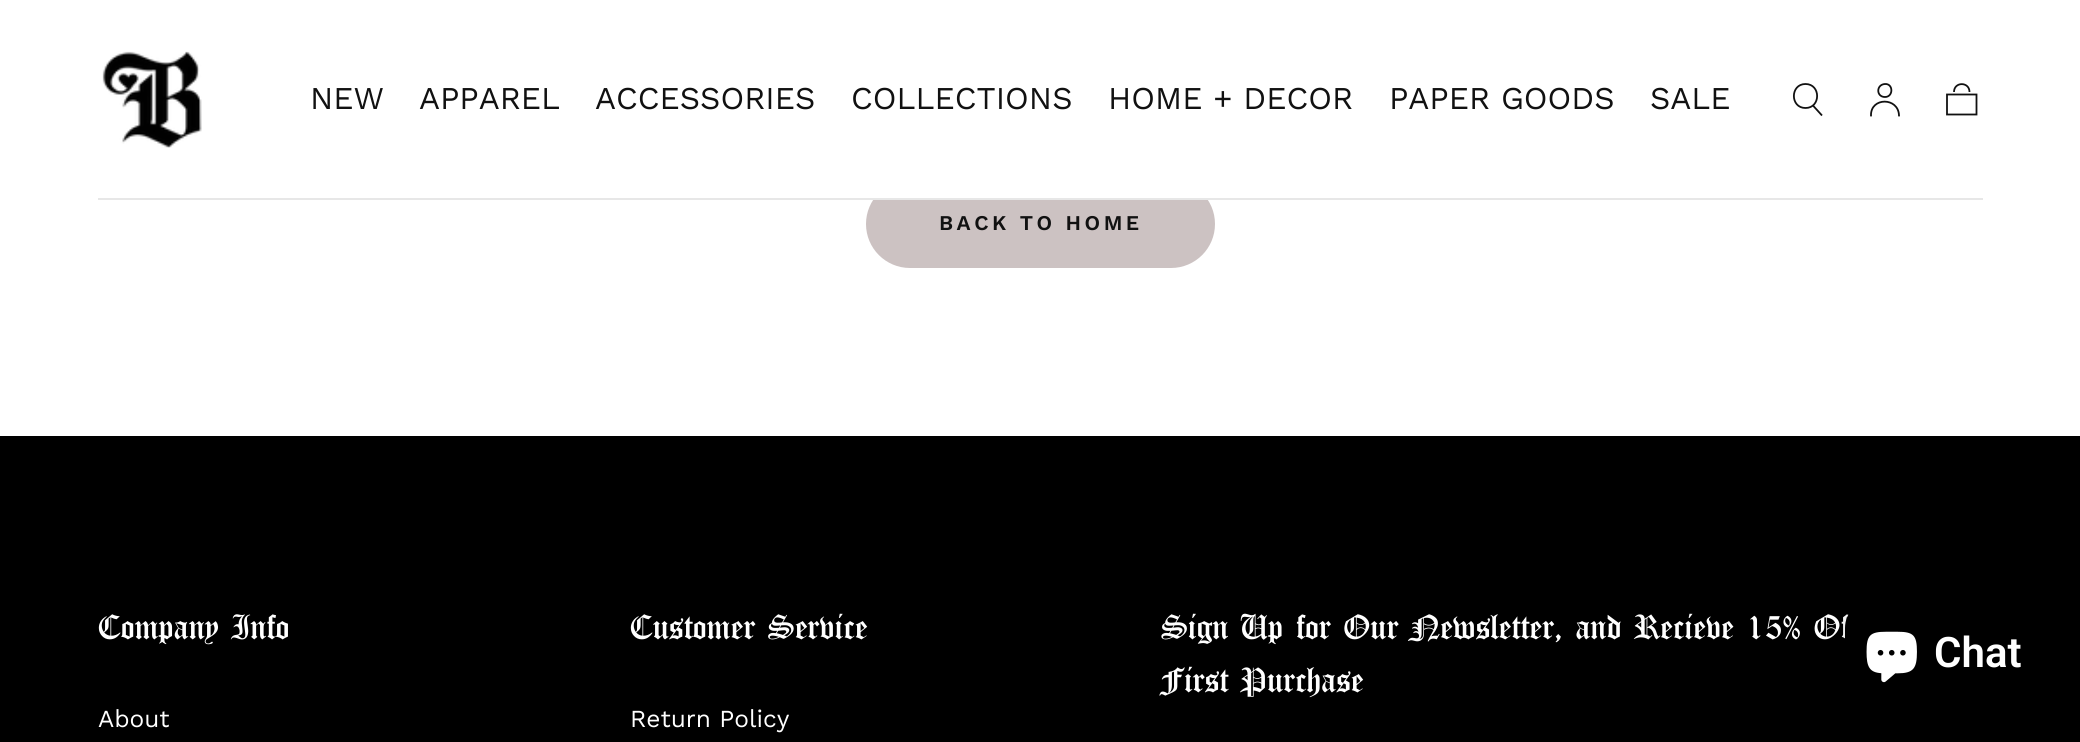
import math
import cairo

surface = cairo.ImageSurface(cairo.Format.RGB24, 2080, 742)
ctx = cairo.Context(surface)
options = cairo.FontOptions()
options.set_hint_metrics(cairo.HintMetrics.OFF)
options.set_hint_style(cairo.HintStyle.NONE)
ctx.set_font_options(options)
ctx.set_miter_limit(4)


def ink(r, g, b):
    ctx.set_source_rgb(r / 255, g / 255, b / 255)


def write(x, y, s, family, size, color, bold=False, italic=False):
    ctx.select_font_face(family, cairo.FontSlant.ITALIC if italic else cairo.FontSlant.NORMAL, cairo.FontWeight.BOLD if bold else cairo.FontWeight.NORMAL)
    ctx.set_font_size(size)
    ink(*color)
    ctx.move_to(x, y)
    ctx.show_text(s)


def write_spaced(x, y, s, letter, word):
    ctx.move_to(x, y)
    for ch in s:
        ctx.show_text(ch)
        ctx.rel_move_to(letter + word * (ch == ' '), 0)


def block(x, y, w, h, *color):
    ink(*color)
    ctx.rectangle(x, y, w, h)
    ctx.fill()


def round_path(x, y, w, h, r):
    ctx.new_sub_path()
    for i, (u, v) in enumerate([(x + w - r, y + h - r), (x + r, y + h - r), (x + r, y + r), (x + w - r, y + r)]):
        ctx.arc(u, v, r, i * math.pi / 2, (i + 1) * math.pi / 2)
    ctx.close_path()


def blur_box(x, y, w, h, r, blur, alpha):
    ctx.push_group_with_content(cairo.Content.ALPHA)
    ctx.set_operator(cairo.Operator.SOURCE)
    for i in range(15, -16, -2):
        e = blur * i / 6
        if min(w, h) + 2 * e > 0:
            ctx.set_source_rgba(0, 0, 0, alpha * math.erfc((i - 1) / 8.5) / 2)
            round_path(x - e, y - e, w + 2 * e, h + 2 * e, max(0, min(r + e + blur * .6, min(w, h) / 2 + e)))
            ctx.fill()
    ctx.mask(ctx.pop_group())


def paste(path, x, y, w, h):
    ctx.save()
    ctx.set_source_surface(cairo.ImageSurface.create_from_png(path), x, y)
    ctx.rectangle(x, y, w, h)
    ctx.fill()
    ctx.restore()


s1 = dict(family="Work Sans", size=31.75, color=(17, 17, 17))
s2 = dict(family="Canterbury", size=36.4, color=(255, 255, 255))
s3 = dict(family="Work Sans", size=24.5, color=(255, 255, 255))
s4 = dict(family="Roboto SemiBold", size=42, color=(255, 255, 255))

ink(255, 255, 255)
ctx.paint()
ink(204, 194, 194)
round_path(867, 181, 347, 86, 43)
ctx.fill_preserve()
ctx.stroke()
block(873, 180, 335, 20, 255, 255, 255)
paste("pic1.png", 102, 51, 100, 97)
write(310, 109, "NEW", **s1)
write(419, 109, "APPAREL", **s1)
write(595, 109, "ACCESSORIES", **s1)
write(851, 109, "COLLECTIONS", **s1)
write(1108, 109, "HOME + DECOR", **s1)
write(1389, 109, "PAPER GOODS", **s1)
write(1650, 109, "SALE", **s1)
ctx.new_path()
ctx.move_to(1812.5, 105)
ctx.line_to(1822, 115.5)
ctx.move_to(1805.5, 108)
ctx.curve_to(1821, 108, 1821, 84, 1805.5, 84)
ctx.curve_to(1790, 84, 1790, 108, 1805.5, 108)
ctx.close_path()
ctx.set_line_width(1.8)
ctx.stroke()
ctx.new_path()
ctx.move_to(1871, 115.5)
ctx.curve_to(1870.5, 97, 1898.5, 97, 1899, 115.5)
ctx.move_to(1885, 97)
ctx.curve_to(1893.5, 97, 1893.5, 83.5, 1885, 84)
ctx.curve_to(1876, 84.5, 1876, 97, 1885, 97)
ctx.close_path()
ctx.set_line_cap(cairo.LineCap.SQUARE)
ctx.stroke()
ctx.new_path()
ctx.move_to(1976.5, 114.5)
ctx.line_to(1947, 114.5)
ctx.line_to(1947, 94.5)
ctx.line_to(1976.5, 94.5)
ctx.close_path()
ctx.move_to(1969.5, 92)
ctx.curve_to(1969.5, 81.5, 1954, 81.5, 1954, 92)
ctx.set_line_cap(cairo.LineCap.BUTT)
ctx.stroke()
block(98, 198, 1885, 2, 231, 231, 231)
ctx.select_font_face("Work Sans SemiBold")
ctx.set_font_size(21)
ink(17, 17, 17)
write_spaced(939, 230, "BACK TO HOME", 3.5, 0)
block(0, 436, 2080, 306, 0, 0, 0)
write(98, 639, "Company Info", **s2)
write(98, 727, "About", **s3)
write(630, 639, "Customer Service", **s2)
write(630, 727, "Return Policy", **s3)
write(1161, 639, "Sign Up for Our Newsletter, and Recieve 15% Of", **s2)
write(1161, 692, "First Purchase", **s2)
ink(0, 0, 0)
blur_box(1845, 600, 197, 105, 28, 4.5, 0.15)
ink(0, 0, 0)
round_path(1845, 600, 197, 105, 28)
ctx.fill()
paste("pic2.png", 1866, 631, 51, 52)
write(1934, 667, "Chat", **s4)
surface.write_to_png("screenshot.png")
